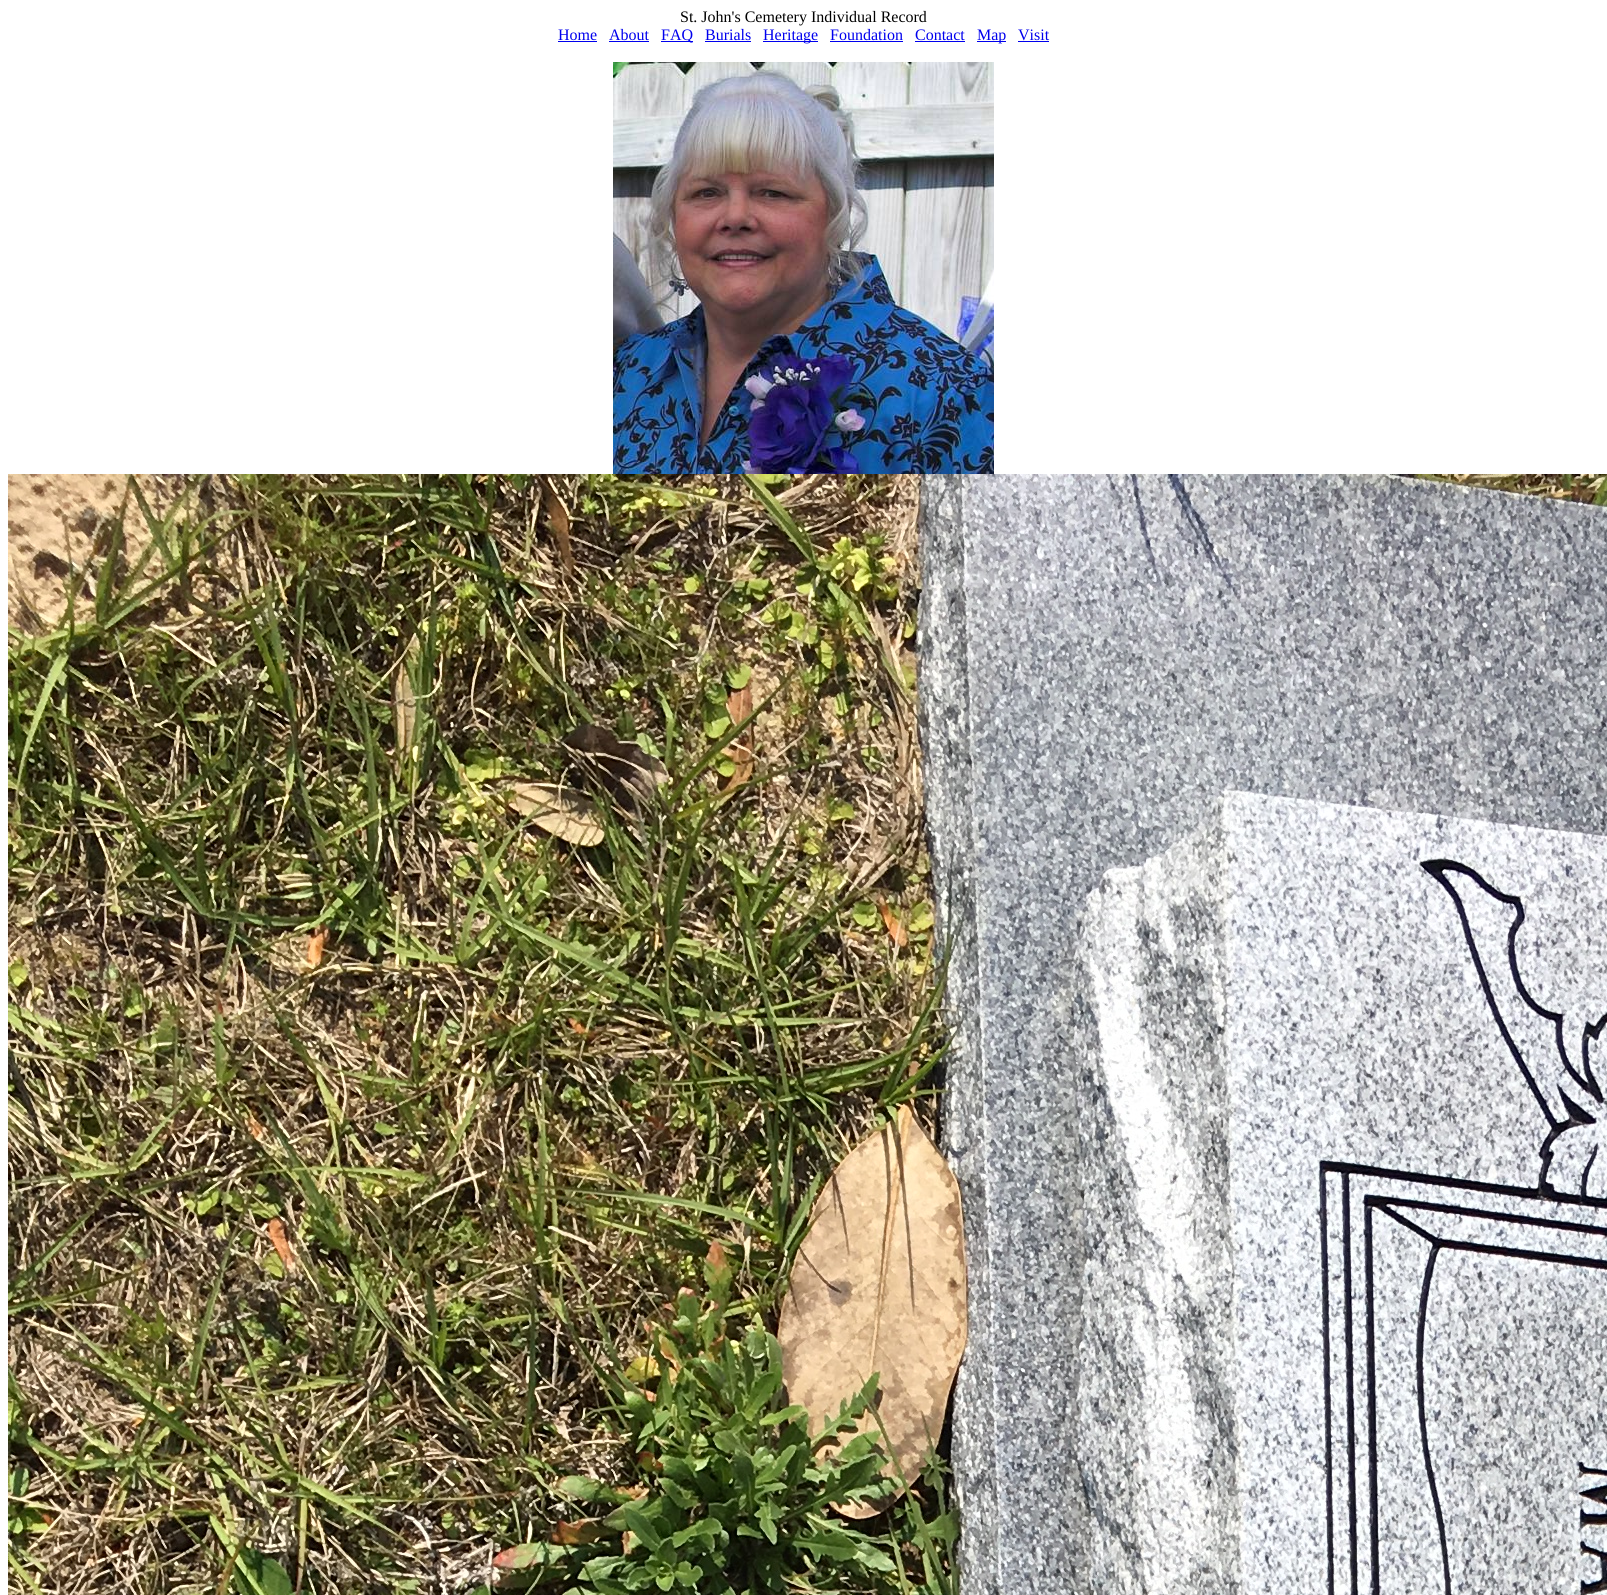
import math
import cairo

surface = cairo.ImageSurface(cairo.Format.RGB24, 1607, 1595)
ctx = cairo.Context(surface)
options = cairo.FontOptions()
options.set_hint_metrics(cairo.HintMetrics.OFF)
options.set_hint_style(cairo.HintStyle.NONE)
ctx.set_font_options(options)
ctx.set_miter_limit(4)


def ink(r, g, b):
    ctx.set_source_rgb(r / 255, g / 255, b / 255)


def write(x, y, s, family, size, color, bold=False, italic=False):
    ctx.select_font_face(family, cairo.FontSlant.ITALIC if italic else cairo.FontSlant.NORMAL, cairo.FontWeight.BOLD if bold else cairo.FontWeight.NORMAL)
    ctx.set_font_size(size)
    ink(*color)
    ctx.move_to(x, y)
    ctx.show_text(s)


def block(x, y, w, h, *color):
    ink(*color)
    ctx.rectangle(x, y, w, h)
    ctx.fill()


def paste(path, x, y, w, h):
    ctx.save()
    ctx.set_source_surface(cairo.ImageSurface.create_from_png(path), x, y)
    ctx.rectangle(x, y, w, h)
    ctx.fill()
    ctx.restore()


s1 = dict(family="Liberation Serif", size=16, color=(0, 0, 0))
s2 = dict(family="Liberation Serif", size=16, color=(0, 0, 238))

ink(255, 255, 255)
ctx.paint()
write(680, 22, "St. John's Cemetery Individual Record", **s1)
write(558, 40, "Home", **s2)
block(558, 41, 39, 1, 0, 0, 238)
write(609, 40, "About", **s2)
block(609, 41, 40, 1, 0, 0, 238)
block(661, 41, 32, 1, 0, 0, 238)
write(661, 40, "FAQ", **s2)
write(705, 40, "Burials", **s2)
block(705, 41, 46, 1, 0, 0, 238)
block(763, 41, 55, 1, 0, 0, 238)
write(763, 40, "Heritage", **s2)
write(830, 40, "Foundation", **s2)
block(830, 41, 73, 1, 0, 0, 238)
write(915, 40, "Contact", **s2)
block(915, 41, 50, 1, 0, 0, 238)
block(977, 41, 29, 1, 0, 0, 238)
write(977, 40, "Map", **s2)
write(1018, 40, "Visit", **s2)
block(1018, 41, 31, 1, 0, 0, 238)
paste("pic1.png", 613, 62, 381, 412)
paste("pic2.png", 8, 474, 1599, 1121)
surface.write_to_png("screenshot.png")
